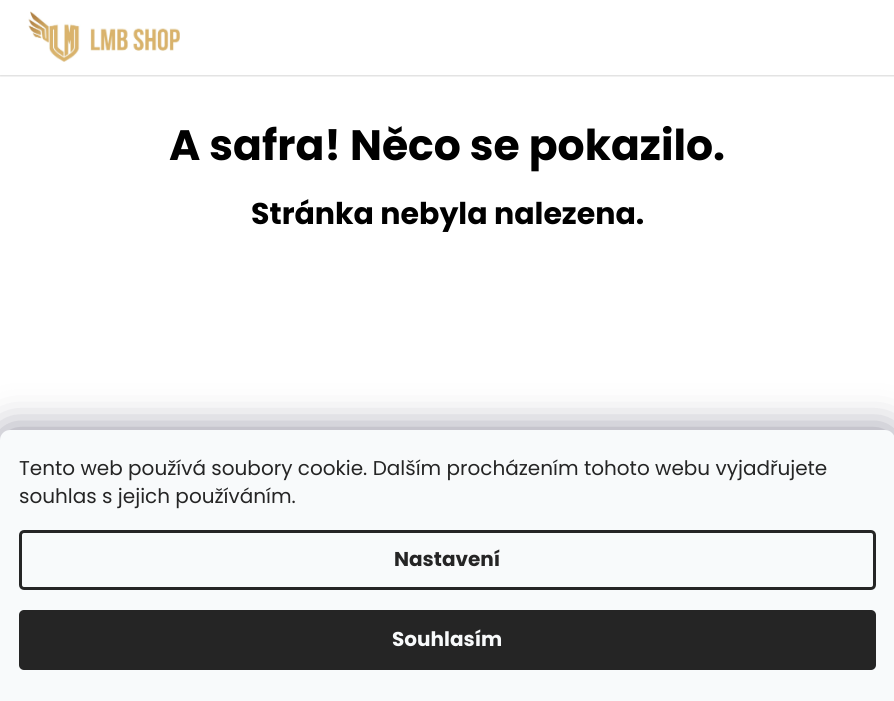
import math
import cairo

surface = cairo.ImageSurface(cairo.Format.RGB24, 894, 701)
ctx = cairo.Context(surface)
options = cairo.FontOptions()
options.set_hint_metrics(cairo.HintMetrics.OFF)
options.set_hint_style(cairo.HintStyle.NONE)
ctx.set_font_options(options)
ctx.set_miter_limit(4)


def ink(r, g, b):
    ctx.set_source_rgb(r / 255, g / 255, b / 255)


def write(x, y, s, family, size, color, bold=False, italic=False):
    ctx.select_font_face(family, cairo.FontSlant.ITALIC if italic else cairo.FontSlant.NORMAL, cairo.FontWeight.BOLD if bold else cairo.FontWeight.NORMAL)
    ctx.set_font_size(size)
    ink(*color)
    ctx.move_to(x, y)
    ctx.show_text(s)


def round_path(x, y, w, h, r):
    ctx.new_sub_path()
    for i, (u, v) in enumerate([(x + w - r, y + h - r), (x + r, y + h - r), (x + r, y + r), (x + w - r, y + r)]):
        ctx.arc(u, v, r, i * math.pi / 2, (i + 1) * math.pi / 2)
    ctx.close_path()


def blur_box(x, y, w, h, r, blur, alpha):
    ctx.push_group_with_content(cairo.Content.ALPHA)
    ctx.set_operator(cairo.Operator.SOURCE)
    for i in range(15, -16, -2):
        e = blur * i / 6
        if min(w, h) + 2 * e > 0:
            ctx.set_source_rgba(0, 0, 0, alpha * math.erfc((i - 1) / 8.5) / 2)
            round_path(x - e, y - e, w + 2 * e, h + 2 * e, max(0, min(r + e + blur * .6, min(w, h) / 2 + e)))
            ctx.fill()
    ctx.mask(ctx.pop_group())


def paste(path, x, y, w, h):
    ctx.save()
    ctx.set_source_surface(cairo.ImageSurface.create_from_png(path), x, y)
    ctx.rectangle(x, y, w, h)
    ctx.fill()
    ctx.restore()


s1 = dict(family="Poppins", size=42.5, color=(0, 0, 0), bold=True)
s2 = dict(family="Poppins", size=30, color=(0, 0, 0), bold=True)
s3 = dict(family="Poppins", size=20, color=(37, 37, 37))
s4 = dict(family="Poppins", size=20, color=(37, 37, 37), bold=True)
s5 = dict(family="Poppins", size=20, color=(248, 250, 251), bold=True)

ink(255, 255, 255)
ctx.paint()
ctx.save()
ctx.rectangle(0, 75, 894, 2)
ctx.clip()
ink(0, 0, 0)
blur_box(0, 1, 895, 75, 0, 1, 0.16)
ctx.restore()
paste("pic1.png", 28, 11, 152, 51)
write(169, 160, "A safra! Něco se pokazilo.", **s1)
write(251, 224, "Stránka nebyla nalezena.", **s2)
ink(27, 25, 57)
blur_box(0, 430, 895, 271, 10, 19, 0.5)
ink(248, 250, 251)
ctx.new_path()
ctx.move_to(10, 430)
ctx.line_to(885, 430)
ctx.curve_to(890.5, 430, 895, 434.5, 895, 440)
ctx.line_to(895, 701)
ctx.line_to(0, 701)
ctx.line_to(0, 440)
ctx.curve_to(0, 434.5, 4.5, 430, 10, 430)
ctx.close_path()
ctx.fill()
write(19, 475, "Tento web používá soubory cookie. Dalším procházením tohoto webu vyjadřujete", **s3)
write(19, 503, "souhlas s jejich používáním.", **s3)
round_path(20.5, 531.5, 854, 57, 3.5)
ctx.set_line_width(3)
ctx.stroke()
write(394, 566, "Nastavení", **s4)
round_path(19, 610, 857, 60, 5)
ctx.fill()
write(392, 646, "Souhlasím", **s5)
surface.write_to_png("screenshot.png")
